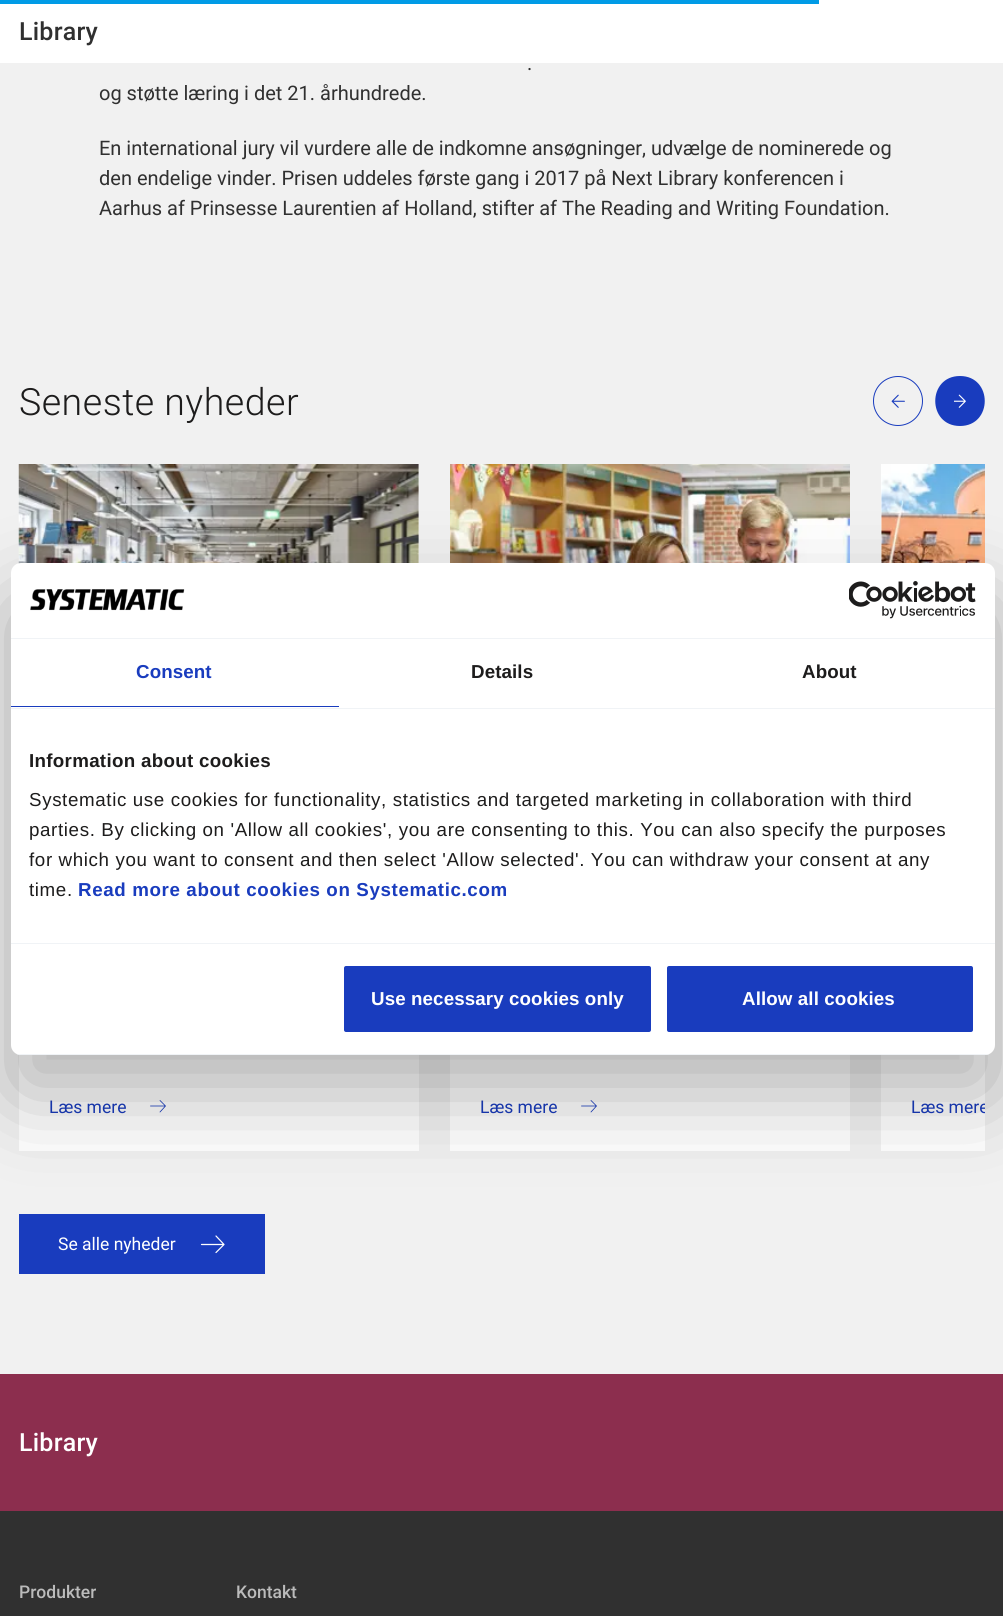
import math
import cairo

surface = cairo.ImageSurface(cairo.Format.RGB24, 1003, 1616)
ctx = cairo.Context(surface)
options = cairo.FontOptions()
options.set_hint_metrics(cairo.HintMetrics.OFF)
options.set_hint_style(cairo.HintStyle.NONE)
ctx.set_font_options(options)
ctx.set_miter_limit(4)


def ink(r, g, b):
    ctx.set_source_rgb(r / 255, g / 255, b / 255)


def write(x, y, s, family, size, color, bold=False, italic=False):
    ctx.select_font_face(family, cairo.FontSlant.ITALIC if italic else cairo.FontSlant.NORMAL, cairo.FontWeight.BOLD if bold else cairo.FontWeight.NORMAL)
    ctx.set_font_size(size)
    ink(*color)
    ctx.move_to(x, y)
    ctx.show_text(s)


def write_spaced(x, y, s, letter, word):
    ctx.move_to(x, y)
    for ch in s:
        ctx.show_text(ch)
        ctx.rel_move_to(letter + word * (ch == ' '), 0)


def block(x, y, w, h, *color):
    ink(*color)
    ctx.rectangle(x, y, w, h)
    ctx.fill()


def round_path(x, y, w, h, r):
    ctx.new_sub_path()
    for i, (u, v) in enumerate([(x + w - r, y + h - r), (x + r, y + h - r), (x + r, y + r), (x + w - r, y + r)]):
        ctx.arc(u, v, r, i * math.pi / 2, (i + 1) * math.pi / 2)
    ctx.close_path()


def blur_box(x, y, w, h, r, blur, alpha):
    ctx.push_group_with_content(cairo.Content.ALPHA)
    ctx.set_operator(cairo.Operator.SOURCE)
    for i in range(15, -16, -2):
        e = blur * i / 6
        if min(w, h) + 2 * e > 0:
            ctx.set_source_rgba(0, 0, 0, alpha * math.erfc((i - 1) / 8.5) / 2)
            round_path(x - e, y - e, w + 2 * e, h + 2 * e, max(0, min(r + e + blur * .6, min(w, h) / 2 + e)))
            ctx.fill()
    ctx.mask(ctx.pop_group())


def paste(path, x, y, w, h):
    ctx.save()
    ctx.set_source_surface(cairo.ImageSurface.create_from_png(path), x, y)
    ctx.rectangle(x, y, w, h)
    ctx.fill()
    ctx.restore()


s1 = dict(family="Roboto", size=20, color=(48, 48, 48))
s2 = dict(family="Roboto", size=17.5, color=(25, 60, 190))
s3 = dict(family="Roboto", size=17.5, color=(255, 255, 255))
s4 = dict(family="Roboto Medium", size=17.5, color=(187, 187, 187))

ink(241, 241, 241)
ctx.paint()
block(0, 0, 1003, 63, 255, 255, 255)
block(0, 0, 819, 4, 0, 155, 230)
ctx.select_font_face("Roboto Medium")
ctx.set_font_size(25)
ink(48, 48, 48)
write_spaced(19, 40, "Library", 0.25, 0)
write(527, 70, ".", **s1)
write(99, 100, "og støtte læring i det 21. århundrede.", **s1)
write(99, 155, "En international jury vil vurdere alle de indkomne ansøgninger, udvælge de nominerede og", **s1)
write(99, 185, "den endelige vinder. Prisen uddeles første gang i 2017 på Next Library konferencen i", **s1)
write(99, 215, "Aarhus af Prinsesse Laurentien af Holland, stifter af The Reading and Writing Foundation.", **s1)
ctx.select_font_face("Roboto Light")
ctx.set_font_size(37.5)
ink(29, 28, 28)
write_spaced(19, 415, "Seneste nyheder", 0.5, 0)
ctx.new_path()
ctx.arc(898, 401, 24.5, 0, 2 * math.pi)
ink(25, 60, 190)
ctx.set_line_width(1)
ctx.stroke()
paste("pic1.png", 891, 394, 14, 14)
ctx.new_path()
ctx.move_to(960, 426)
ctx.curve_to(927, 426, 927, 376, 960, 376)
ctx.curve_to(993, 376, 993, 426, 960, 426)
ctx.close_path()
ctx.fill()
paste("pic2.png", 954, 394, 12, 14)
block(19, 464, 400, 687, 255, 255, 255)
paste("pic3.png", 18, 464, 401, 100)
write(49, 1113, "Læs mere", **s2)
ctx.new_path()
ctx.move_to(165.5, 1106)
ctx.line_to(150.5, 1106)
ctx.move_to(165.5, 1106)
ctx.line_to(160, 1112)
ctx.move_to(165.5, 1106)
ctx.line_to(160, 1100.5)
ctx.set_line_width(0.8)
ctx.set_line_cap(cairo.LineCap.ROUND)
ctx.stroke()
block(450, 1055, 400, 96, 255, 255, 255)
paste("pic4.png", 450, 464, 400, 99)
write(480, 1113, "Læs mere", **s2)
ctx.new_path()
ctx.move_to(596.5, 1106)
ctx.line_to(581.5, 1106)
ctx.move_to(596.5, 1106)
ctx.line_to(591, 1112)
ctx.move_to(596.5, 1106)
ctx.line_to(591, 1100.5)
ctx.stroke()
block(881, 464, 104, 687, 255, 255, 255)
paste("pic5.png", 881, 464, 104, 99)
ctx.save()
ctx.rectangle(881, 464, 104, 687)
ctx.clip()
write(911, 1113, "Læs mere", **s2)
ctx.restore()
block(19, 1214, 246, 60, 25, 60, 190)
write(58, 1250, "Se alle nyheder", **s3)
ctx.new_path()
ctx.move_to(224, 1244.5)
ctx.line_to(201.5, 1244.5)
ctx.move_to(224, 1244.5)
ctx.line_to(216, 1252.5)
ctx.move_to(224, 1244.5)
ctx.line_to(216, 1236)
ctx.set_line_width(1.2)
ctx.stroke()
ink(0, 0, 0)
blur_box(11, 603, 984, 492, 10, 42.5, 0.3)
ink(255, 255, 255)
round_path(11, 563, 984, 492, 10)
ctx.fill()
block(11, 638, 984, 1, 240, 243, 246)
paste("pic6.png", 30, 589, 155, 22)
paste("pic7.png", 849, 581, 127, 38)
block(11, 708, 984, 1, 240, 243, 246)
block(11, 706, 328, 1, 25, 60, 190)
ctx.select_font_face("Liberation Sans", cairo.FontSlant.NORMAL, cairo.FontWeight.BOLD)
ctx.set_font_size(18.75)
write_spaced(136, 678, "Consent", 0.1, 0)
ink(29, 28, 28)
write_spaced(471, 678, "Details", 0.1, 0)
write_spaced(802, 678, "About", 0.1, 0)
block(11, 943, 984, 1, 240, 243, 246)
ink(29, 28, 28)
write_spaced(29, 767, "Information about cookies", 0.3, 0)
ctx.select_font_face("Liberation Sans")
write_spaced(29, 806, "Systematic use cookies for functionality, statistics and targeted marketing in collaboration with third", 0.62, 0)
write_spaced(29, 836, "parties. By clicking on 'Allow all cookies', you are consenting to this. You can also specify the purposes", 0.62, 0)
write_spaced(29, 866, "for which you want to consent and then select 'Allow selected'. You can withdraw your consent at any", 0.62, 0)
write_spaced(29, 896, "time.", 0.62, 0)
ctx.select_font_face("Liberation Sans", cairo.FontSlant.NORMAL, cairo.FontWeight.BOLD)
ink(25, 60, 190)
write_spaced(78, 896, "Read more about cookies on Systematic.com", 0.62, 0)
ctx.save()
round_path(11, 563, 984, 492, 10)
ctx.clip()
block(11, 1054, 984, 1, 240, 243, 246)
ctx.restore()
round_path(342.5, 964.5, 310, 69, 3.5)
ctx.fill_preserve()
ink(255, 255, 255)
ctx.set_line_width(3)
ctx.set_line_cap(cairo.LineCap.BUTT)
ctx.stroke()
write_spaced(371, 1005, "Use necessary cookies only", 0.1, 0)
ink(25, 60, 190)
round_path(665.5, 964.5, 309, 69, 3.5)
ctx.fill_preserve()
ink(255, 255, 255)
ctx.stroke()
write_spaced(742, 1005, "Allow all cookies", 0.1, 0)
block(0, 1374, 1003, 137, 140, 46, 78)
ctx.select_font_face("Roboto Medium")
ctx.set_font_size(25)
ink(255, 255, 255)
write_spaced(19, 1451, "Library", 0.25, 0)
block(0, 1511, 1003, 105, 48, 48, 48)
write(19, 1598, "Produkter", **s4)
write(236, 1598, "Kontakt", **s4)
surface.write_to_png("screenshot.png")
